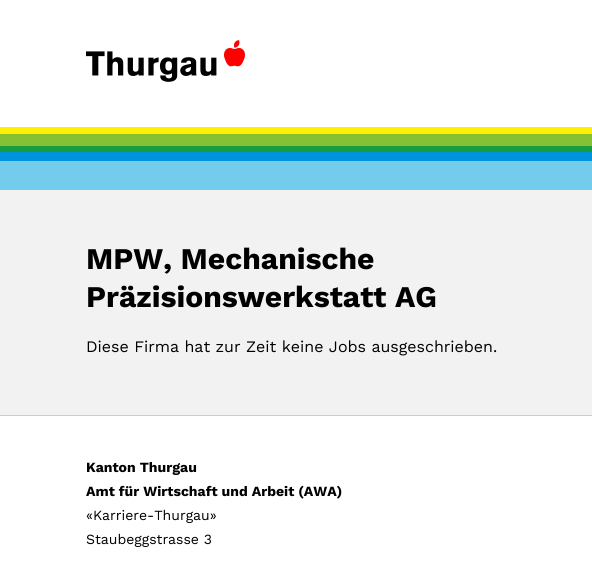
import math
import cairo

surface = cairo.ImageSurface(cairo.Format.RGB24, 592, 561)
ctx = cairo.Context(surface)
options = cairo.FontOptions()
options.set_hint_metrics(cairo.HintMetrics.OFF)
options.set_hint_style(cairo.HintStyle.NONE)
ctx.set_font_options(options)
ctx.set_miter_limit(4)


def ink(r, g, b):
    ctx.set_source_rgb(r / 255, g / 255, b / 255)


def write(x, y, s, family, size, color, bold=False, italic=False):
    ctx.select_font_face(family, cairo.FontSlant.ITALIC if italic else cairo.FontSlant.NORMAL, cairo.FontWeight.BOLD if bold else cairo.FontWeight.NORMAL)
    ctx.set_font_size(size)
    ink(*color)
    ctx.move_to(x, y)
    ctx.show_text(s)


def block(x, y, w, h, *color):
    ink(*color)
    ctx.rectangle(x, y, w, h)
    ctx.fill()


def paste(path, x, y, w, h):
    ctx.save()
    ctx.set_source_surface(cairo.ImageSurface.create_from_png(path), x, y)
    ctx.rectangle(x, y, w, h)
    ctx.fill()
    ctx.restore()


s1 = dict(family="Work Sans", size=30, color=(0, 0, 0), bold=True)
s2 = dict(family="Work Sans", size=16, color=(0, 0, 0))
s3 = dict(family="Work Sans", size=14, color=(0, 0, 0), bold=True)
s4 = dict(family="Work Sans", size=14, color=(0, 0, 0))

ink(255, 255, 255)
ctx.paint()
paste("pic1.png", 86, 40, 159, 42)
block(0, 134, 592, 12, 133, 192, 53)
block(0, 127, 592, 7, 255, 240, 0)
block(0, 146, 592, 6, 24, 157, 62)
block(0, 152, 592, 9, 0, 147, 221)
block(0, 190, 592, 225, 242, 242, 242)
block(0, 161, 592, 29, 115, 204, 236)
write(86, 269, "MPW, Mechanische", **s1)
write(86, 307, "Präzisionswerkstatt AG", **s1)
write(86, 352, "Diese Firma hat zur Zeit keine Jobs ausgeschrieben.", **s2)
block(0, 415, 592, 1, 204, 204, 204)
write(86, 472, "Kanton Thurgau", **s3)
write(86, 496, "Amt für Wirtschaft und Arbeit (AWA)", **s3)
write(86, 520, "«Karriere-Thurgau»", **s4)
write(86, 544, "Staubeggstrasse 3", **s4)
surface.write_to_png("screenshot.png")
